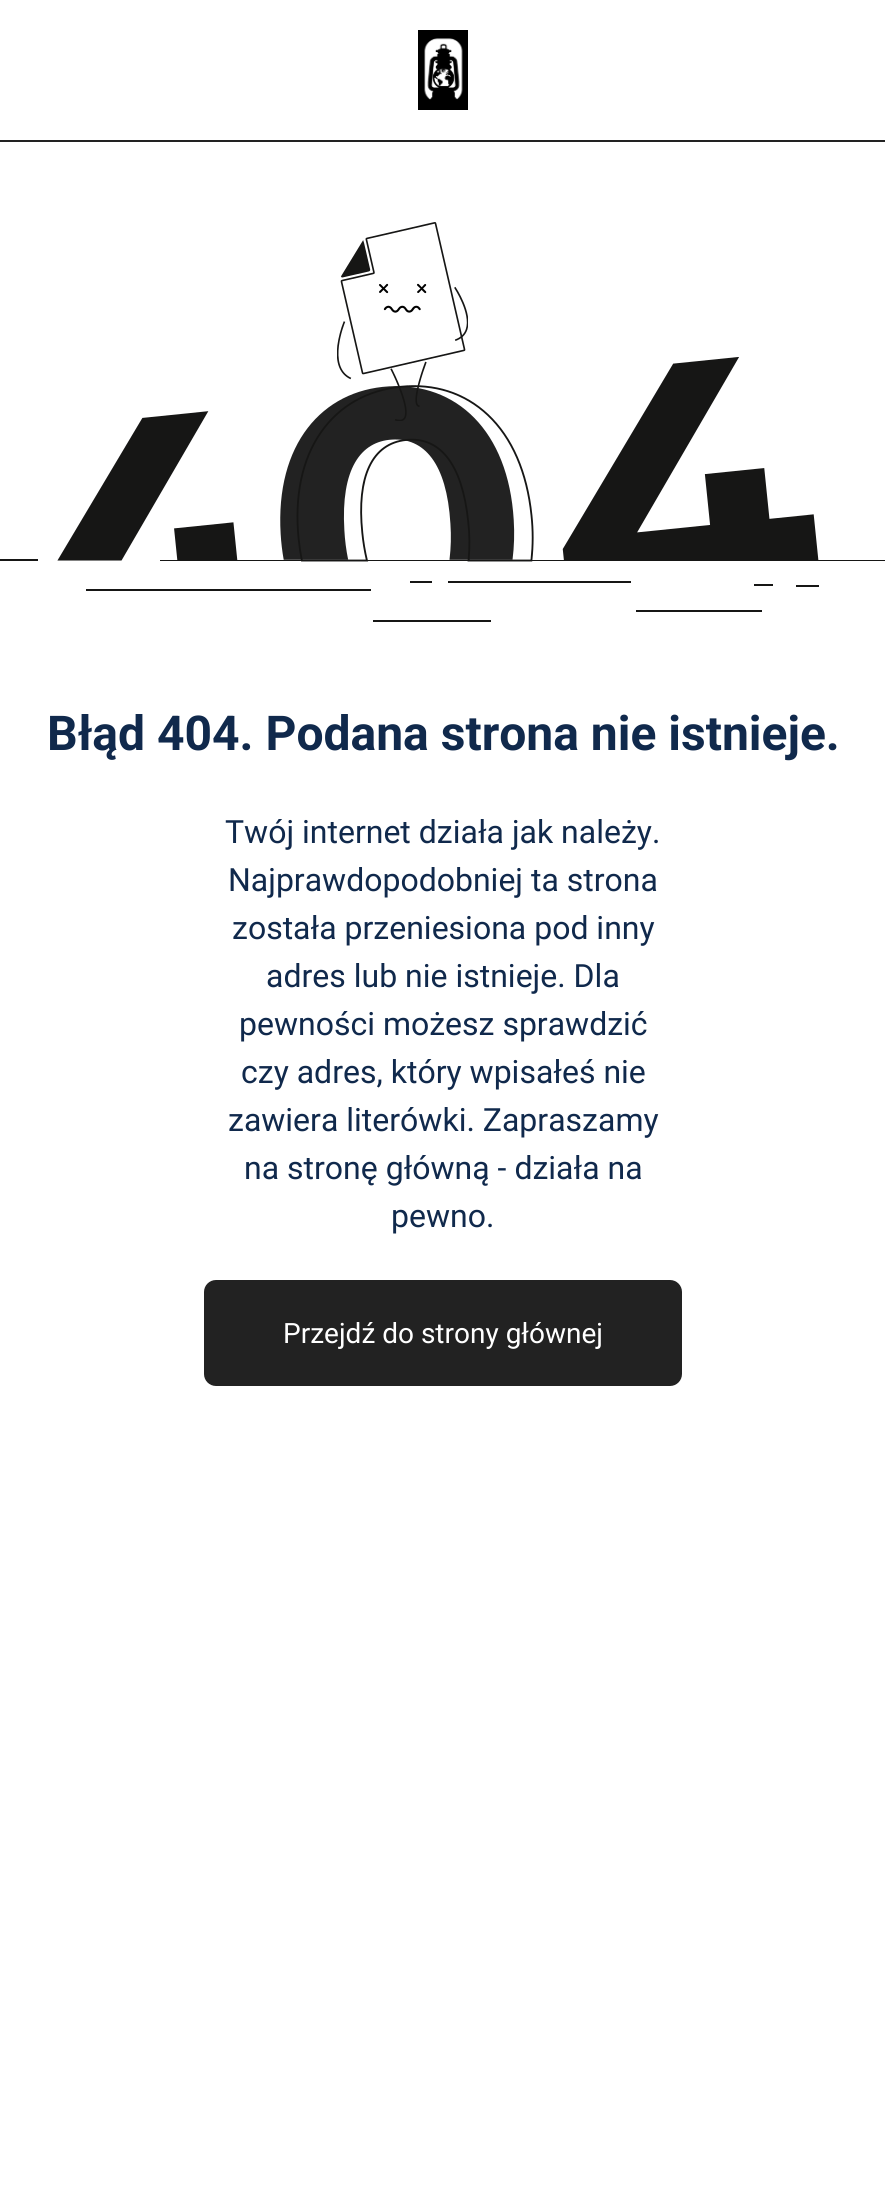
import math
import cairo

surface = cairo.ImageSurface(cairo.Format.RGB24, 885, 2208)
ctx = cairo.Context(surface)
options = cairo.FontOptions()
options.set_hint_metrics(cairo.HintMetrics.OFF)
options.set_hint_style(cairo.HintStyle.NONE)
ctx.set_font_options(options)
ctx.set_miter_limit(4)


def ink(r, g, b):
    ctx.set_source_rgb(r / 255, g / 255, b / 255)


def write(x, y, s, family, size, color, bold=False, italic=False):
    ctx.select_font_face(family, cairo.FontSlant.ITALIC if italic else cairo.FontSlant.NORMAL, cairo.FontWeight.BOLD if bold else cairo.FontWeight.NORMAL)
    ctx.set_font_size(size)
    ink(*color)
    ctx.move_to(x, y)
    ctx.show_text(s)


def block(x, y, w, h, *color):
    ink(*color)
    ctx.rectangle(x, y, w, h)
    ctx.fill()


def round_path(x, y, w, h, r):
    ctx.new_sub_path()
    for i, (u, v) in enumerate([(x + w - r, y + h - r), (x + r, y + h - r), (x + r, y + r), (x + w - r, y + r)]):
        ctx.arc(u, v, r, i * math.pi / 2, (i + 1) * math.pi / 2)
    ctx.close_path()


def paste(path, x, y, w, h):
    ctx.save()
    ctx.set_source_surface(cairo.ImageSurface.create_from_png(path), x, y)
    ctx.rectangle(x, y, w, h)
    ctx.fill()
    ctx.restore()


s1 = dict(family="Roboto", size=48, color=(16, 41, 76), bold=True)
s2 = dict(family="Roboto", size=32, color=(16, 41, 76))
s3 = dict(family="Roboto", size=28, color=(255, 255, 255))

ink(255, 255, 255)
ctx.paint()
paste("pic1.png", 418, 30, 50, 80)
block(0, 140, 885, 2, 34, 34, 34)
paste("pic2.png", 0, 222, 885, 400)
write(47, 750, "Błąd 404. Podana strona nie istnieje.", **s1)
write(225, 843, "Twój internet działa jak należy.", **s2)
write(228, 891, "Najprawdopodobniej ta strona", **s2)
write(232, 939, "została przeniesiona pod inny", **s2)
write(266, 987, "adres lub nie istnieje. Dla", **s2)
write(239, 1035, "pewności możesz sprawdzić", **s2)
write(241, 1083, "czy adres, który wpisałeś nie", **s2)
write(228, 1131, "zawiera literówki. Zapraszamy", **s2)
write(244, 1179, "na stronę główną - działa na", **s2)
write(391, 1227, "pewno.", **s2)
ink(34, 34, 34)
round_path(204, 1280, 478, 106, 12)
ctx.fill()
write(283, 1343, "Przejdź do strony głównej", **s3)
surface.write_to_png("screenshot.png")
